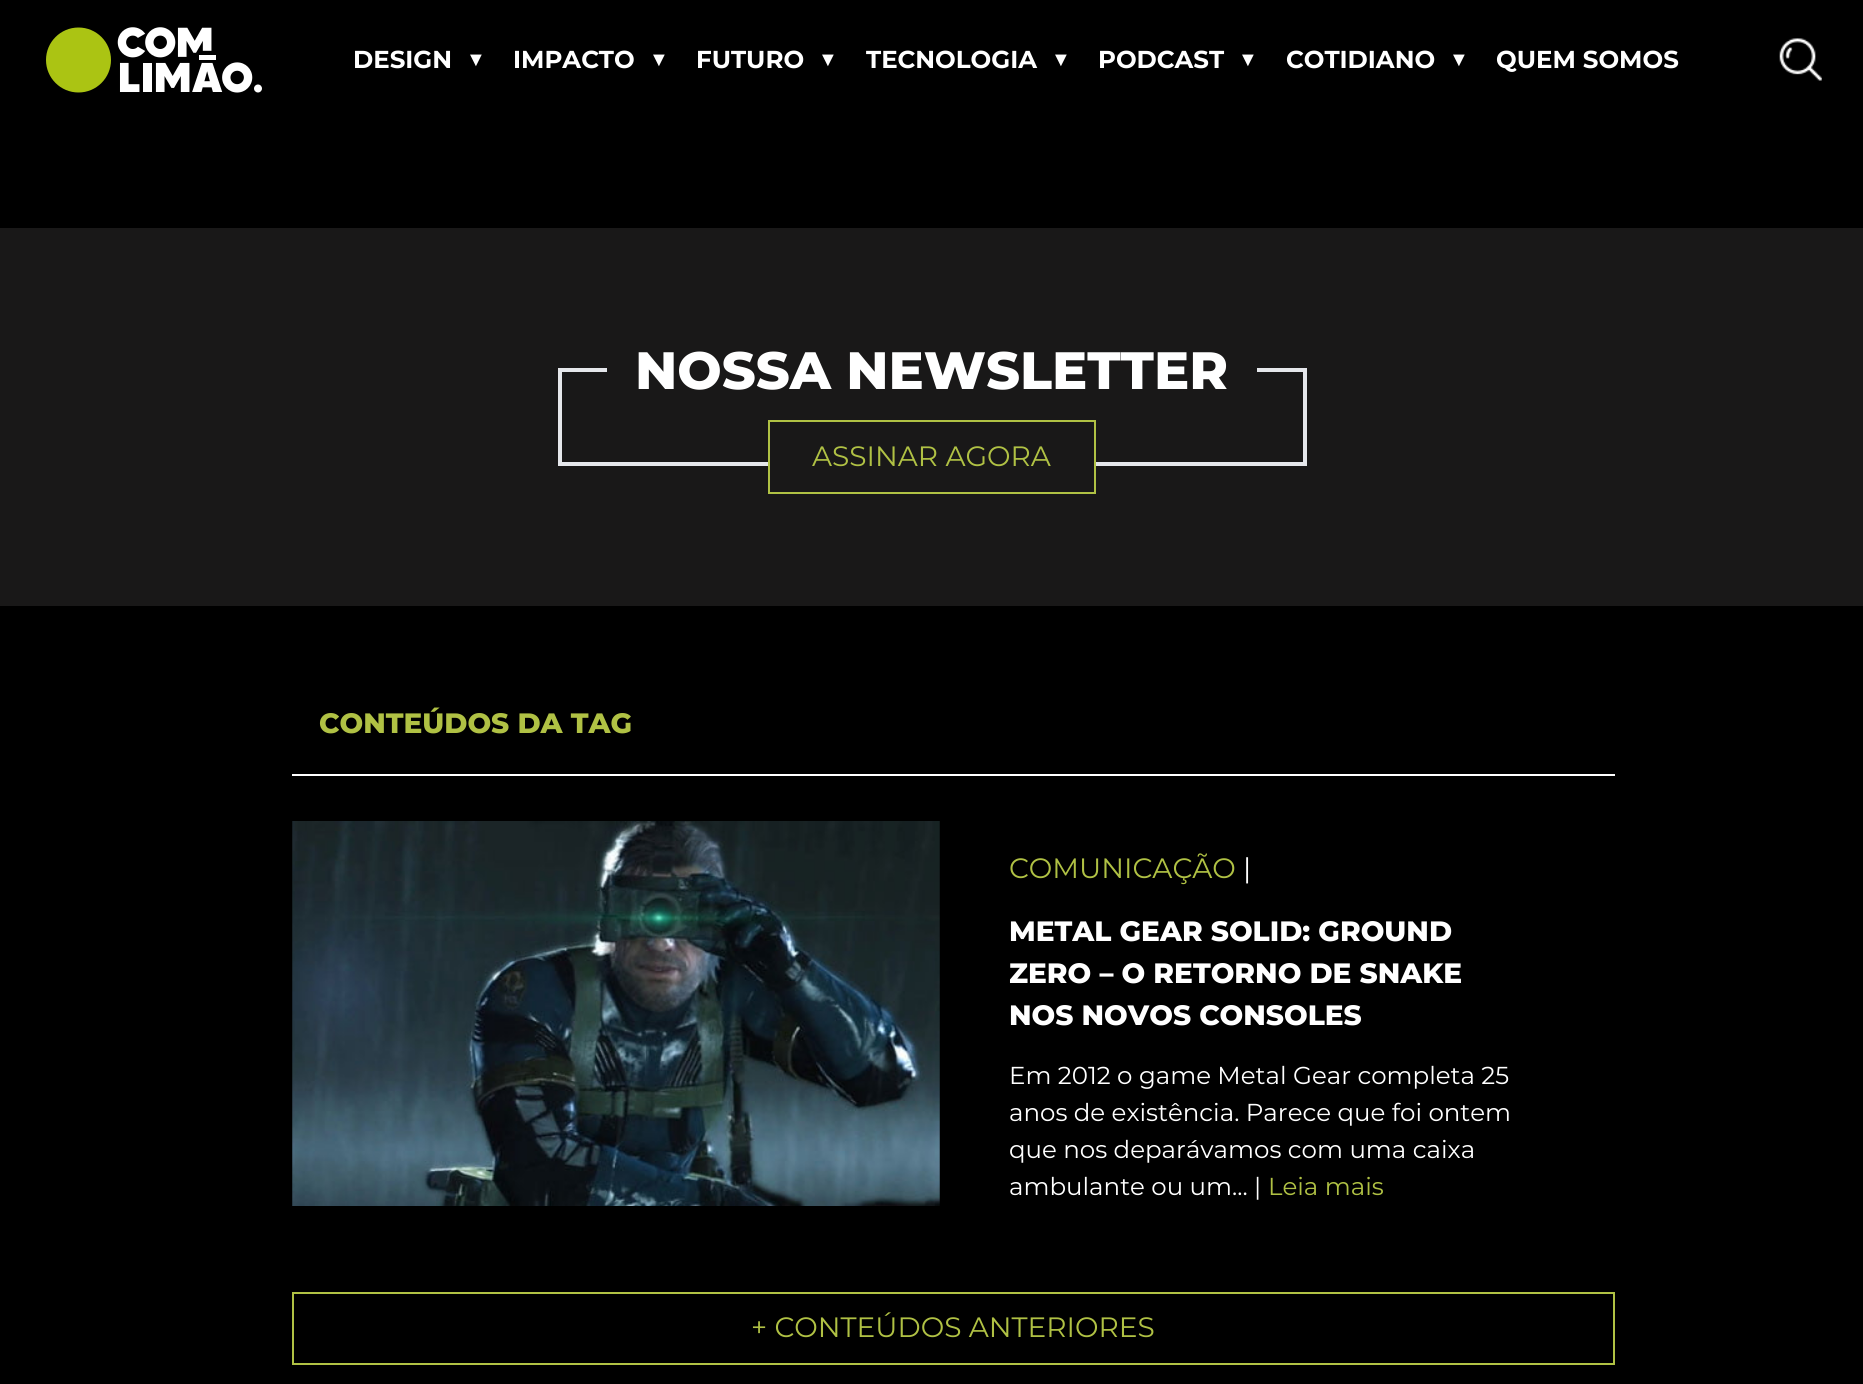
import math
import cairo

surface = cairo.ImageSurface(cairo.Format.RGB24, 1863, 1384)
ctx = cairo.Context(surface)
options = cairo.FontOptions()
options.set_hint_metrics(cairo.HintMetrics.OFF)
options.set_hint_style(cairo.HintStyle.NONE)
ctx.set_font_options(options)
ctx.set_miter_limit(4)


def ink(r, g, b):
    ctx.set_source_rgb(r / 255, g / 255, b / 255)


def write(x, y, s, family, size, color, bold=False, italic=False):
    ctx.select_font_face(family, cairo.FontSlant.ITALIC if italic else cairo.FontSlant.NORMAL, cairo.FontWeight.BOLD if bold else cairo.FontWeight.NORMAL)
    ctx.set_font_size(size)
    ink(*color)
    ctx.move_to(x, y)
    ctx.show_text(s)


def block(x, y, w, h, *color):
    ink(*color)
    ctx.rectangle(x, y, w, h)
    ctx.fill()


def paste(path, x, y, w, h):
    ctx.save()
    ctx.set_source_surface(cairo.ImageSurface.create_from_png(path), x, y)
    ctx.rectangle(x, y, w, h)
    ctx.fill()
    ctx.restore()


s1 = dict(family="Montserrat", size=24.5, color=(255, 255, 255), bold=True)
s2 = dict(family="Liberation Sans", size=20, color=(255, 255, 255), bold=True)
s3 = dict(family="Montserrat ExtraBold", size=52.5, color=(255, 255, 255))
s4 = dict(family="Montserrat", size=28, color=(176, 193, 68))
s5 = dict(family="Montserrat ExtraBold", size=28, color=(176, 193, 68))
s6 = dict(family="Montserrat", size=28, color=(255, 255, 255))
s7 = dict(family="Montserrat ExtraBold", size=28, color=(255, 255, 255))
s8 = dict(family="Montserrat", size=24.5, color=(255, 255, 255))
s9 = dict(family="Montserrat", size=24.5, color=(176, 193, 68))

ink(0, 0, 0)
ctx.paint()
paste("pic1.png", 46, 27, 216, 66)
write(353, 68, "DESIGN", **s1)
write(466, 66, "▼", **s2)
write(513, 68, "IMPACTO", **s1)
write(649, 66, "▼", **s2)
write(696, 68, "FUTURO", **s1)
write(818, 66, "▼", **s2)
write(866, 68, "TECNOLOGIA", **s1)
write(1051, 66, "▼", **s2)
write(1098, 68, "PODCAST", **s1)
write(1238, 66, "▼", **s2)
write(1286, 68, "COTIDIANO", **s1)
write(1449, 66, "▼", **s2)
write(1496, 68, "QUEM SOMOS", **s1)
paste("pic2.png", 1779, 38, 43, 43)
block(0, 228, 1863, 378, 25, 24, 24)
ctx.rectangle(560, 370, 745, 94)
ink(229, 231, 235)
ctx.set_line_width(4)
ctx.stroke()
block(607, 368, 650, 4, 25, 24, 24)
write(635, 389, "NOSSA NEWSLETTER", **s3)
block(770, 462, 324, 4, 25, 24, 24)
ctx.rectangle(769, 421, 326, 72)
ink(176, 193, 68)
ctx.set_line_width(2)
ctx.stroke()
write(812, 466, "ASSINAR AGORA", **s4)
block(292, 774, 1323, 2, 255, 255, 255)
write(319, 733, "CONTEÚDOS DA TAG", **s5)
paste("pic3.png", 292, 821, 648, 385)
write(1009, 878, "COMUNICAÇÃO", **s4)
write(1243, 878, "|", **s6)
write(1009, 941, "METAL GEAR SOLID: GROUND", **s7)
write(1009, 983, "ZERO – O RETORNO DE SNAKE", **s7)
write(1009, 1025, "NOS NOVOS CONSOLES", **s7)
write(1009, 1084, "Em 2012 o game Metal Gear completa 25", **s8)
write(1009, 1121, "anos de existência. Parece que foi ontem", **s8)
write(1009, 1158, "que nos deparávamos com uma caixa", **s8)
write(1009, 1195, "ambulante ou um... |", **s8)
write(1268, 1195, "Leia mais", **s9)
ctx.rectangle(293, 1293, 1321, 71)
ctx.stroke()
write(751, 1337, "+ CONTEÚDOS ANTERIORES", **s4)
surface.write_to_png("screenshot.png")
